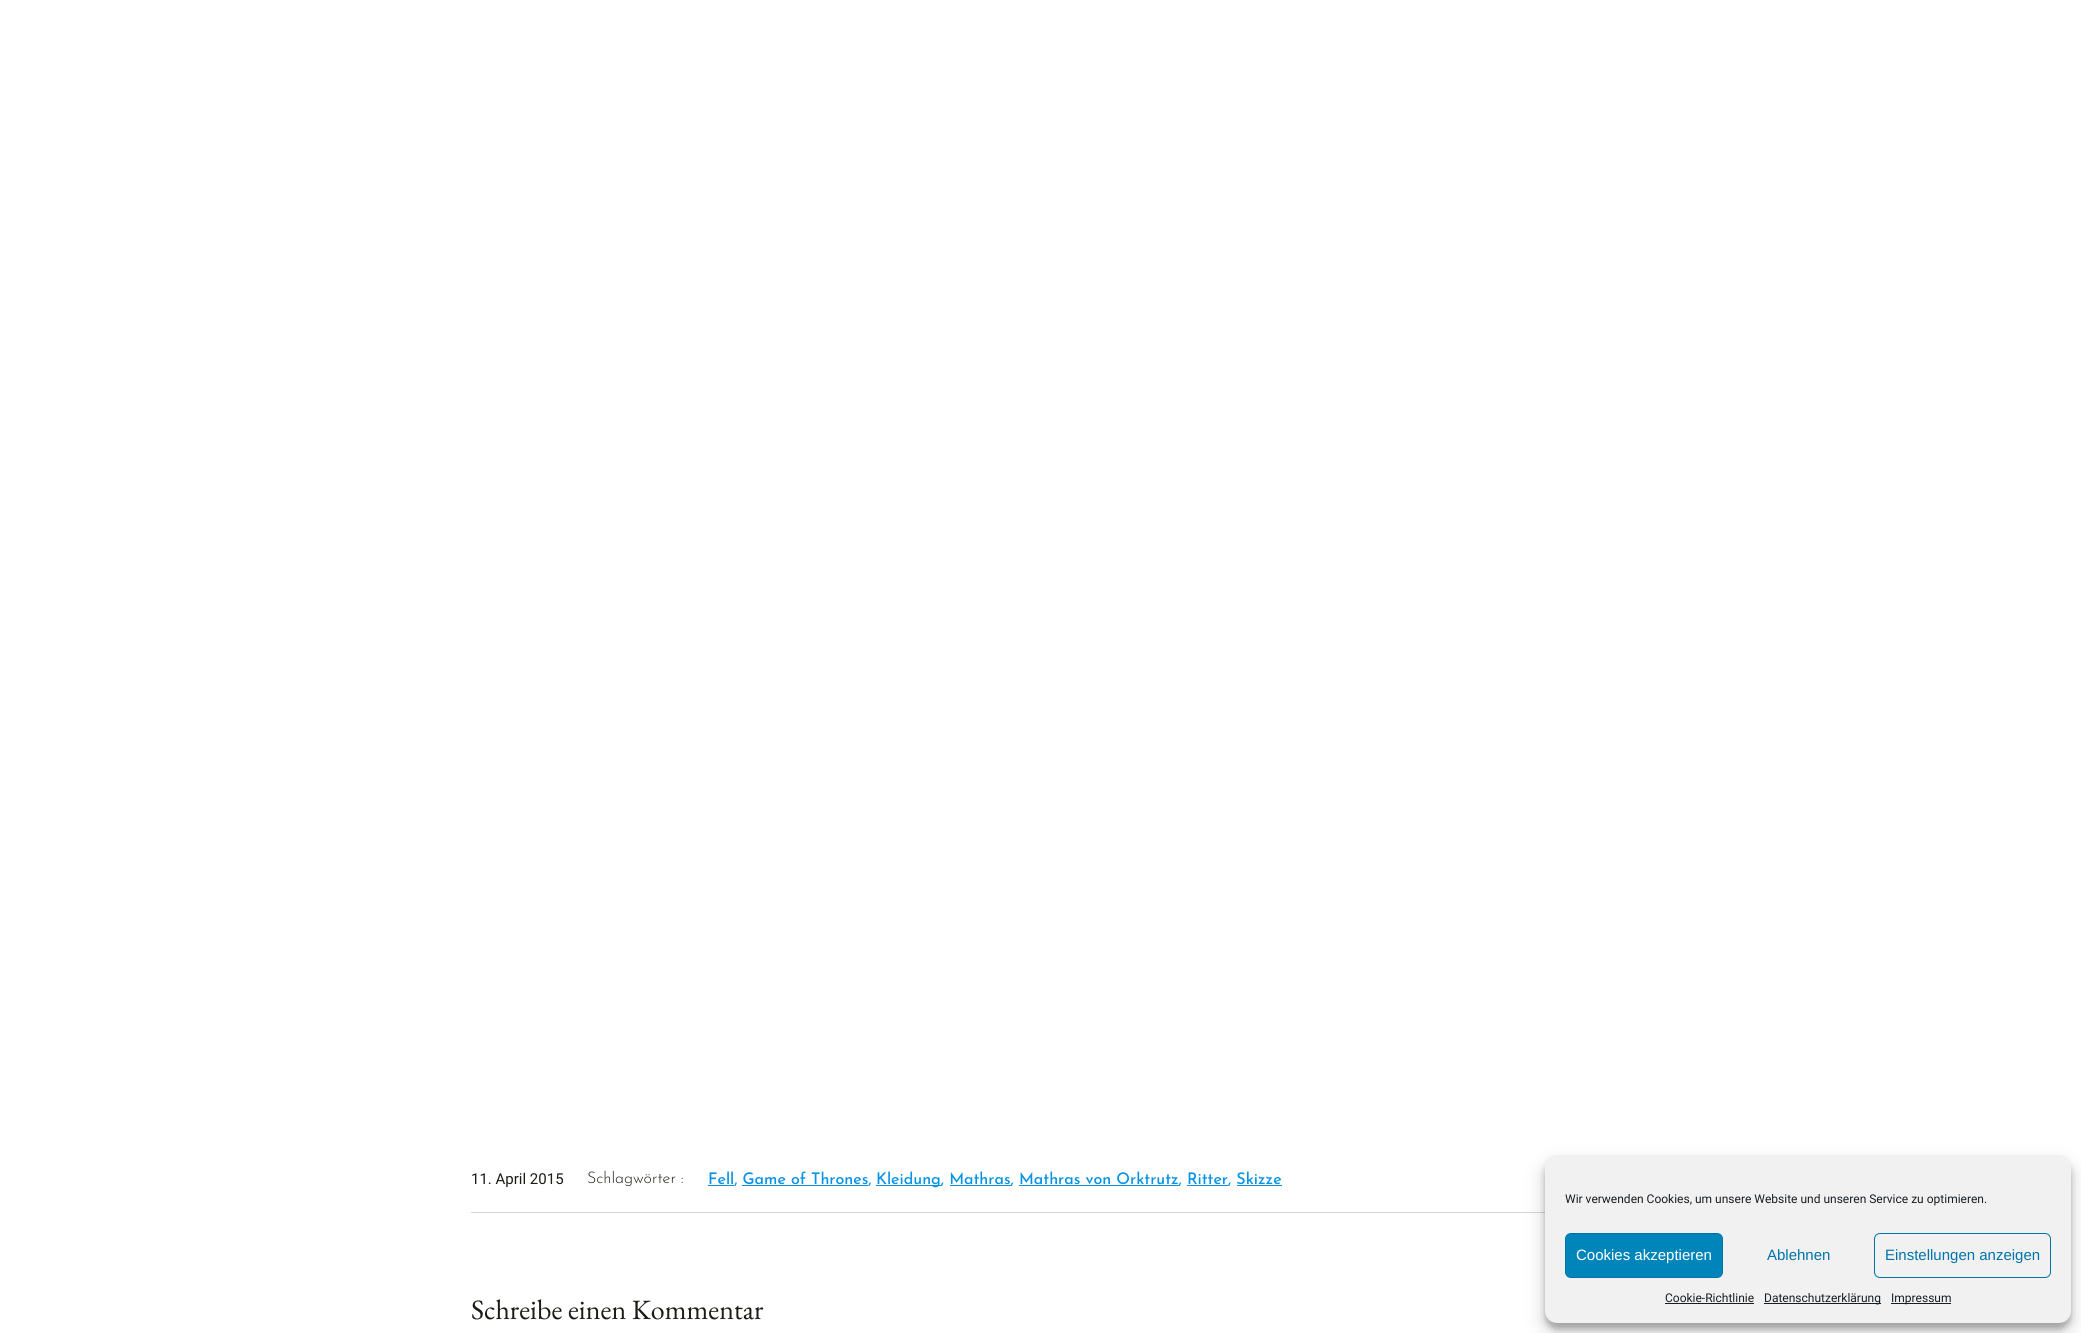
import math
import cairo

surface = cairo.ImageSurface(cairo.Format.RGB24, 2081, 1333)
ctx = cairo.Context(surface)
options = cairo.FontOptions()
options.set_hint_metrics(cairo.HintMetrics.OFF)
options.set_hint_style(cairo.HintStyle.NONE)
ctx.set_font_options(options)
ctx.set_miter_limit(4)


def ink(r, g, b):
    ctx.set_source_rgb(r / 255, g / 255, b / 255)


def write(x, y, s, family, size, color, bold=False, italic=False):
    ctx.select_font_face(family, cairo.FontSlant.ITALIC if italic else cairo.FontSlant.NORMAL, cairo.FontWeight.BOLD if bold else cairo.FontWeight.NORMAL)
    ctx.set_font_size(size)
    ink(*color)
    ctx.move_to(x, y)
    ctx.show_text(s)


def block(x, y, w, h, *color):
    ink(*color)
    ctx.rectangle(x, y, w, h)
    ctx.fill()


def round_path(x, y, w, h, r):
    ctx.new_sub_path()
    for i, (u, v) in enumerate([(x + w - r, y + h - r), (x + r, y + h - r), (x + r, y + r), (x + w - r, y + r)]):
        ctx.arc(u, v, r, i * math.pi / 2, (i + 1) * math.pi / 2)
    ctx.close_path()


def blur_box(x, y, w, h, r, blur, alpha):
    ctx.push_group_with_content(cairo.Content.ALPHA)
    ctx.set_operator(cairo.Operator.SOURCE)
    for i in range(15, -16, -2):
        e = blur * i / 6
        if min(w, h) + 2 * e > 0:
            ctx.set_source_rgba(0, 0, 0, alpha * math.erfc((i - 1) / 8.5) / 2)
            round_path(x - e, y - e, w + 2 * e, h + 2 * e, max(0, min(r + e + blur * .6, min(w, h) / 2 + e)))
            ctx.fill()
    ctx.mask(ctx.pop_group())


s1 = dict(family="Roboto", size=15, color=(29, 27, 21))
s2 = dict(family="Josefin Sans Light", size=16, color=(29, 27, 21))
s3 = dict(family="Josefin Sans Medium", size=16, color=(6, 147, 227))
s4 = dict(family="EB Garamond", size=28, color=(29, 27, 21))
s5 = dict(family="Roboto", size=12, color=(25, 30, 35))
s6 = dict(family="Liberation Sans", size=15, color=(255, 255, 255))
s7 = dict(family="Liberation Sans", size=15, color=(0, 115, 170))

ink(255, 255, 255)
ctx.paint()
block(471, 1212, 1074, 1, 214, 214, 214)
write(471, 1184, "11. April 2015", **s1)
write(587, 1183, "Schlagwörter :", **s2)
block(708, 1185, 26, 1, 6, 147, 227)
write(708, 1184, "Fell, Game of Thrones,", **s3)
block(876, 1185, 65, 1, 6, 147, 227)
write(876, 1184, "Kleidung, Mathras, Mathras von Orktrutz, Ritter, Skizze", **s3)
block(742, 1185, 126, 1, 6, 147, 227)
block(950, 1185, 61, 1, 6, 147, 227)
block(1019, 1185, 160, 1, 6, 147, 227)
block(1187, 1185, 41, 1, 6, 147, 227)
block(1237, 1185, 45, 1, 6, 147, 227)
write(471, 1319, "Schreibe einen Kommentar", **s4)
ink(0, 0, 0)
blur_box(1545, 1161, 526, 168, 12, 3, 0.23)
blur_box(1545, 1165, 526, 168, 12, 10, 0.19)
ink(241, 241, 241)
round_path(1545, 1155, 526, 168, 12)
ctx.fill()
write(1565, 1203, "Wir verwenden Cookies, um unsere Website und unseren Service zu optimieren.", **s5)
ink(0, 133, 186)
round_path(1565.5, 1233.5, 157, 44, 5.5)
ctx.fill_preserve()
ink(0, 115, 170)
ctx.set_line_width(1)
ctx.stroke()
write(1576, 1260, "Cookies akzeptieren", **s6)
write(1767, 1260, "Ablehnen", **s7)
round_path(1874.5, 1233.5, 176, 44, 5.5)
ctx.stroke()
write(1885, 1260, "Einstellungen anzeigen", **s7)
write(1665, 1302, "Cookie-Richtlinie", **s5)
block(1665, 1303, 89, 1, 25, 30, 35)
block(1764, 1303, 117, 1, 25, 30, 35)
write(1764, 1302, "Datenschutzerklärung", **s5)
block(1891, 1303, 60, 1, 25, 30, 35)
write(1891, 1302, "Impressum", **s5)
surface.write_to_png("screenshot.png")
